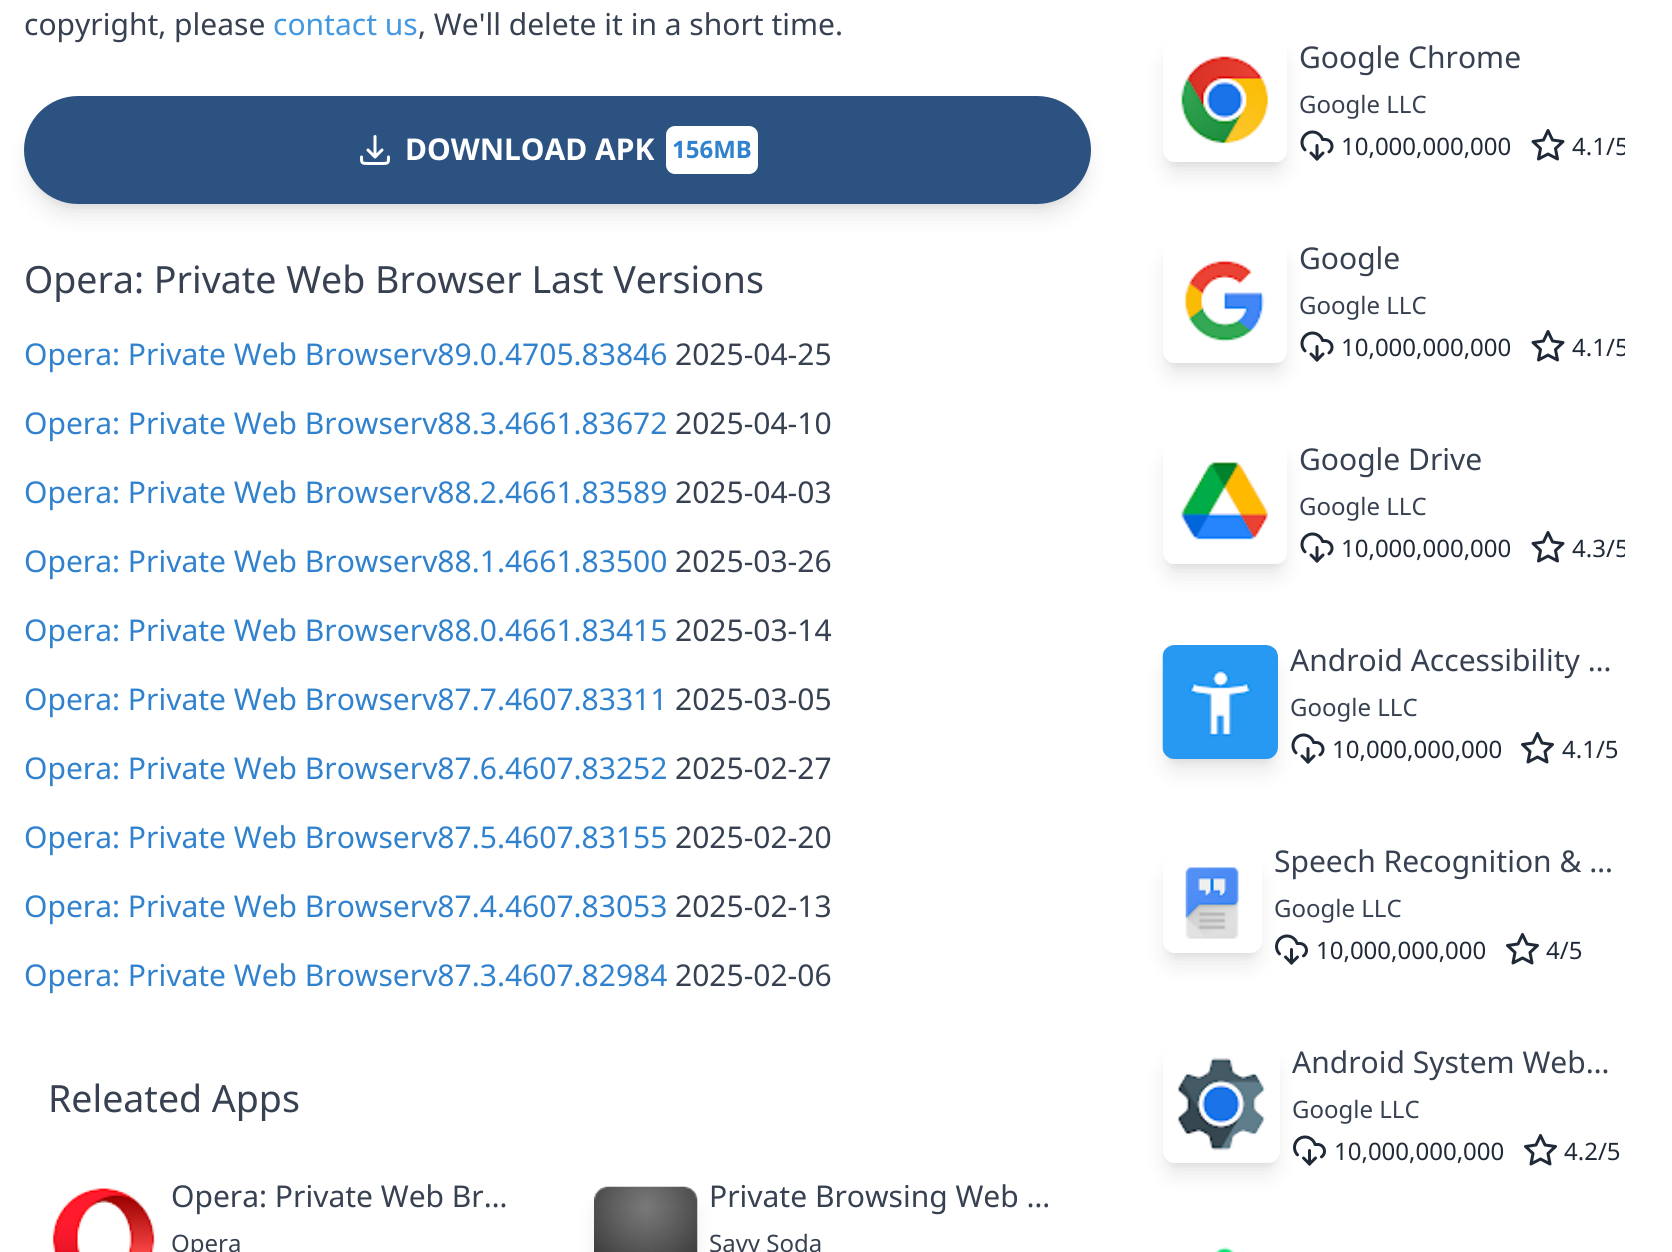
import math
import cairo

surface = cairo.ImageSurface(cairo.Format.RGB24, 1672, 1252)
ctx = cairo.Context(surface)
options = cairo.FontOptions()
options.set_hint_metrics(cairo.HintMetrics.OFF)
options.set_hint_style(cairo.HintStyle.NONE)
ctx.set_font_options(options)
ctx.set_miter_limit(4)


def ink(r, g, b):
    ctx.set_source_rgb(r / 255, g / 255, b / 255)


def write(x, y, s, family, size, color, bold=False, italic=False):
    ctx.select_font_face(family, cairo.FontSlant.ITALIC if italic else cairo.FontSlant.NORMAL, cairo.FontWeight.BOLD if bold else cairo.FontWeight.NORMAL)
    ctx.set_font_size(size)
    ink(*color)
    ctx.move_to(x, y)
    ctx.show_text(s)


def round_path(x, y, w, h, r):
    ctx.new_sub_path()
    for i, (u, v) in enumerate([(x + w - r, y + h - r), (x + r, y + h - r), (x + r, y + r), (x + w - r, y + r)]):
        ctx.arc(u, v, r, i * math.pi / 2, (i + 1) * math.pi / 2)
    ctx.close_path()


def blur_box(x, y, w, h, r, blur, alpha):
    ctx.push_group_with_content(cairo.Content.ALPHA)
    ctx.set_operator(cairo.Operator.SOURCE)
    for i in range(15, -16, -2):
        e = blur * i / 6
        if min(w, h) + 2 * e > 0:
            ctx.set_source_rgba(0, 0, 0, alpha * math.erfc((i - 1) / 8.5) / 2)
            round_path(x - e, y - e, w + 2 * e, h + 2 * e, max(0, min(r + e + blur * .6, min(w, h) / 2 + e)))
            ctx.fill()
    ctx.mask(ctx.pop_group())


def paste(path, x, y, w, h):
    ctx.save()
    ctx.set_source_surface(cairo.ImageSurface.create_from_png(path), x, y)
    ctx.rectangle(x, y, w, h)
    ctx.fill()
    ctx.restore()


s1 = dict(family="Noto Sans", size=30, color=(55, 65, 81))
s2 = dict(family="Noto Sans", size=30, color=(66, 153, 225))
s3 = dict(family="Noto Sans", size=30, color=(255, 255, 255), bold=True)
s4 = dict(family="Noto Sans", size=24, color=(49, 130, 206), bold=True)
s5 = dict(family="Noto Sans", size=37.5, color=(55, 65, 81))
s6 = dict(family="Noto Sans", size=30, color=(49, 130, 206))
s7 = dict(family="Noto Sans", size=24, color=(55, 65, 81))
s8 = dict(family="Noto Sans", size=24, color=(31, 41, 55))

ink(255, 255, 255)
ctx.paint()
write(24, 35, "copyright, please", **s1)
write(273, 35, "contact us", **s2)
write(418, 35, ", We'll delete it in a short time.", **s1)
ink(0, 0, 0)
blur_box(30, 108, 1055, 96, 48, 4.5, 0.1)
blur_box(29, 116, 1057, 99, 49.5, 11, 0.1)
ink(44, 82, 130)
round_path(24, 96, 1067, 108, 54)
ctx.fill()
ctx.new_path()
ctx.move_to(361.5, 157)
ctx.curve_to(361.5, 163, 361.5, 163.5, 368, 163.5)
ctx.line_to(382, 163.5)
ctx.curve_to(388.5, 163.5, 388.5, 163, 388.5, 157)
ctx.move_to(382, 150)
ctx.line_to(375, 157)
ctx.move_to(375, 157)
ctx.line_to(368, 150)
ctx.move_to(375, 157)
ctx.line_to(375, 136.5)
ink(255, 255, 255)
ctx.set_line_width(3)
ctx.set_line_cap(cairo.LineCap.ROUND)
ctx.set_line_join(cairo.LineJoin.ROUND)
ctx.stroke()
write(405, 160, "DOWNLOAD APK", **s3)
round_path(666, 126, 92, 48, 9)
ctx.fill()
write(672, 158, "156MB", **s4)
write(24, 293, "Opera: Private Web Browser Last Versions", **s5)
write(24, 365, "Opera: Private Web Browserv89.0.4705.83846", **s6)
write(675, 365, "2025-04-25", **s1)
write(24, 434, "Opera: Private Web Browserv88.3.4661.83672", **s6)
write(675, 434, "2025-04-10", **s1)
write(24, 503, "Opera: Private Web Browserv88.2.4661.83589", **s6)
write(675, 503, "2025-04-03", **s1)
write(24, 572, "Opera: Private Web Browserv88.1.4661.83500", **s6)
write(675, 572, "2025-03-26", **s1)
write(24, 641, "Opera: Private Web Browserv88.0.4661.83415", **s6)
write(675, 641, "2025-03-14", **s1)
write(24, 710, "Opera: Private Web Browserv87.7.4607.83311", **s6)
write(675, 710, "2025-03-05", **s1)
write(24, 779, "Opera: Private Web Browserv87.6.4607.83252", **s6)
write(675, 779, "2025-02-27", **s1)
write(24, 848, "Opera: Private Web Browserv87.5.4607.83155", **s6)
write(675, 848, "2025-02-20", **s1)
write(24, 917, "Opera: Private Web Browserv87.4.4607.83053", **s6)
write(675, 917, "2025-02-13", **s1)
write(24, 986, "Opera: Private Web Browserv87.3.4607.82984", **s6)
write(675, 986, "2025-02-06", **s1)
write(48, 1112, "Releated Apps", **s5)
paste("pic1.png", 52, 1188, 103, 64)
write(171, 1207, "Opera: Private Web Br…", **s1)
write(171, 1252, "Opera", **s7)
ink(0, 0, 0)
blur_box(599, 1206, 94, 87, 8, 11, 0.1)
paste("pic2.png", 594, 1186, 104, 66)
write(709, 1207, "Private Browsing Web …", **s1)
write(709, 1252, "Savy Soda", **s7)
ctx.save()
ctx.set_fill_rule(cairo.FillRule.EVEN_ODD)
ctx.new_path()
ctx.move_to(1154, 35)
ctx.line_to(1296, 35)
ctx.line_to(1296, 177)
ctx.line_to(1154, 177)
ctx.close_path()
ctx.move_to(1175, 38)
ctx.line_to(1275, 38)
ctx.curve_to(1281.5, 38, 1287, 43.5, 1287, 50)
ctx.line_to(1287, 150)
ctx.curve_to(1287, 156.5, 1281.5, 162, 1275, 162)
ctx.line_to(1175, 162)
ctx.curve_to(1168.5, 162, 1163, 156.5, 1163, 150)
ctx.line_to(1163, 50)
ctx.curve_to(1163, 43.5, 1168.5, 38, 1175, 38)
ctx.close_path()
ctx.clip()
ink(0, 0, 0)
blur_box(1169, 50, 112, 112, 6, 4.5, 0.1)
ctx.restore()
ctx.save()
ctx.set_fill_rule(cairo.FillRule.EVEN_ODD)
ctx.new_path()
ctx.move_to(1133, 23)
ctx.line_to(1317, 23)
ctx.line_to(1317, 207)
ctx.line_to(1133, 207)
ctx.close_path()
ctx.move_to(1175, 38)
ctx.line_to(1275, 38)
ctx.curve_to(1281.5, 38, 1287, 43.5, 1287, 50)
ctx.line_to(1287, 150)
ctx.curve_to(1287, 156.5, 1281.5, 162, 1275, 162)
ctx.line_to(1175, 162)
ctx.curve_to(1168.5, 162, 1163, 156.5, 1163, 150)
ctx.line_to(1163, 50)
ctx.curve_to(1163, 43.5, 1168.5, 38, 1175, 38)
ctx.close_path()
ctx.clip()
ink(0, 0, 0)
blur_box(1167, 57, 116, 116, 8, 11, 0.1)
ctx.restore()
paste("pic3.png", 1168, 56, 116, 106)
write(1299, 68, "Google Chrome", **s1)
write(1299, 113, "Google LLC", **s7)
paste("pic4.png", 1300, 130, 34, 31)
write(1341, 155, "10,000,000,000", **s8)
ctx.new_path()
ctx.move_to(1548, 130.5)
ctx.line_to(1552.5, 140)
ctx.line_to(1563, 141.5)
ctx.line_to(1555.5, 148.5)
ctx.line_to(1557.5, 159)
ctx.line_to(1548, 154)
ctx.line_to(1538.5, 159)
ctx.line_to(1540.5, 148.5)
ctx.line_to(1533, 141.5)
ctx.line_to(1543.5, 140)
ctx.close_path()
ctx.stroke()
write(1572, 155, "4.1", **s8)
ctx.save()
ctx.rectangle(1299, 35, 326, 129)
ctx.clip()
write(1606, 155, "/5", **s8)
ctx.restore()
ctx.save()
ctx.set_fill_rule(cairo.FillRule.EVEN_ODD)
ctx.new_path()
ctx.move_to(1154, 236)
ctx.line_to(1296, 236)
ctx.line_to(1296, 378)
ctx.line_to(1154, 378)
ctx.close_path()
ctx.move_to(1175, 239)
ctx.line_to(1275, 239)
ctx.curve_to(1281.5, 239, 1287, 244.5, 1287, 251)
ctx.line_to(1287, 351)
ctx.curve_to(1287, 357.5, 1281.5, 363, 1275, 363)
ctx.line_to(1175, 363)
ctx.curve_to(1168.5, 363, 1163, 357.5, 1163, 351)
ctx.line_to(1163, 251)
ctx.curve_to(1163, 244.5, 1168.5, 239, 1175, 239)
ctx.close_path()
ctx.clip()
ink(0, 0, 0)
blur_box(1169, 251, 112, 112, 6, 4.5, 0.1)
ctx.restore()
ctx.save()
ctx.set_fill_rule(cairo.FillRule.EVEN_ODD)
ctx.new_path()
ctx.move_to(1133, 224)
ctx.line_to(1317, 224)
ctx.line_to(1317, 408)
ctx.line_to(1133, 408)
ctx.close_path()
ctx.move_to(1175, 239)
ctx.line_to(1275, 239)
ctx.curve_to(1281.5, 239, 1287, 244.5, 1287, 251)
ctx.line_to(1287, 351)
ctx.curve_to(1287, 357.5, 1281.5, 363, 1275, 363)
ctx.line_to(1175, 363)
ctx.curve_to(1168.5, 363, 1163, 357.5, 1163, 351)
ctx.line_to(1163, 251)
ctx.curve_to(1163, 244.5, 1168.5, 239, 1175, 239)
ctx.close_path()
ctx.clip()
ink(0, 0, 0)
blur_box(1167, 258, 116, 116, 8, 11, 0.1)
ctx.restore()
paste("pic5.png", 1168, 259, 116, 104)
write(1299, 269, "Google", **s1)
write(1299, 314, "Google LLC", **s7)
paste("pic4.png", 1300, 331, 34, 31)
write(1341, 356, "10,000,000,000", **s8)
ctx.new_path()
ctx.move_to(1548, 331.5)
ctx.line_to(1552.5, 341)
ctx.line_to(1563, 342.5)
ctx.line_to(1555.5, 349.5)
ctx.line_to(1557.5, 360)
ctx.line_to(1548, 355)
ctx.line_to(1538.5, 360)
ctx.line_to(1540.5, 349.5)
ctx.line_to(1533, 342.5)
ctx.line_to(1543.5, 341)
ctx.close_path()
ctx.stroke()
write(1572, 356, "4.1", **s8)
ctx.save()
ctx.rectangle(1299, 236, 326, 129)
ctx.clip()
write(1606, 356, "/5", **s8)
ctx.restore()
ctx.save()
ctx.set_fill_rule(cairo.FillRule.EVEN_ODD)
ctx.new_path()
ctx.move_to(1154, 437)
ctx.line_to(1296, 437)
ctx.line_to(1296, 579)
ctx.line_to(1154, 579)
ctx.close_path()
ctx.move_to(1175, 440)
ctx.line_to(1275, 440)
ctx.curve_to(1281.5, 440, 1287, 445.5, 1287, 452)
ctx.line_to(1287, 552)
ctx.curve_to(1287, 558.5, 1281.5, 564, 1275, 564)
ctx.line_to(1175, 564)
ctx.curve_to(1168.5, 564, 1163, 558.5, 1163, 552)
ctx.line_to(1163, 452)
ctx.curve_to(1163, 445.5, 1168.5, 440, 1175, 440)
ctx.close_path()
ctx.clip()
ink(0, 0, 0)
blur_box(1169, 452, 112, 112, 6, 4.5, 0.1)
ctx.restore()
ctx.save()
ctx.set_fill_rule(cairo.FillRule.EVEN_ODD)
ctx.new_path()
ctx.move_to(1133, 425)
ctx.line_to(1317, 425)
ctx.line_to(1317, 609)
ctx.line_to(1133, 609)
ctx.close_path()
ctx.move_to(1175, 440)
ctx.line_to(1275, 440)
ctx.curve_to(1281.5, 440, 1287, 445.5, 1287, 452)
ctx.line_to(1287, 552)
ctx.curve_to(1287, 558.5, 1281.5, 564, 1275, 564)
ctx.line_to(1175, 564)
ctx.curve_to(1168.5, 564, 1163, 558.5, 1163, 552)
ctx.line_to(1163, 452)
ctx.curve_to(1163, 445.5, 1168.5, 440, 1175, 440)
ctx.close_path()
ctx.clip()
ink(0, 0, 0)
blur_box(1167, 459, 116, 116, 8, 11, 0.1)
ctx.restore()
paste("pic6.png", 1168, 462, 116, 102)
write(1299, 470, "Google Drive", **s1)
write(1299, 515, "Google LLC", **s7)
paste("pic4.png", 1300, 532, 34, 31)
write(1341, 557, "10,000,000,000", **s8)
ctx.new_path()
ctx.move_to(1548, 532.5)
ctx.line_to(1552.5, 542)
ctx.line_to(1563, 543.5)
ctx.line_to(1555.5, 550.5)
ctx.line_to(1557.5, 561)
ctx.line_to(1548, 556)
ctx.line_to(1538.5, 561)
ctx.line_to(1540.5, 550.5)
ctx.line_to(1533, 543.5)
ctx.line_to(1543.5, 542)
ctx.close_path()
ctx.stroke()
write(1572, 557, "4.3", **s8)
ctx.save()
ctx.rectangle(1299, 437, 326, 129)
ctx.clip()
write(1606, 557, "/5", **s8)
ctx.restore()
ink(0, 0, 0)
blur_box(1169, 657, 103, 102, 6, 4.5, 0.1)
blur_box(1167, 665, 107, 105, 8, 11, 0.1)
paste("pic7.png", 1162, 645, 116, 114)
write(1290, 671, "Android Accessibility …", **s1)
write(1290, 716, "Google LLC", **s7)
paste("pic8.png", 1291, 733, 34, 31)
write(1332, 758, "10,000,000,000", **s8)
ctx.new_path()
ctx.move_to(1537.5, 733.5)
ctx.line_to(1542, 743)
ctx.line_to(1552.5, 744.5)
ctx.line_to(1545, 751.5)
ctx.line_to(1547, 762)
ctx.line_to(1537.5, 757)
ctx.line_to(1528, 762)
ctx.line_to(1530, 751.5)
ctx.line_to(1522.5, 744.5)
ctx.line_to(1533, 743)
ctx.close_path()
ctx.stroke()
write(1562, 758, "4.1/5", **s8)
ctx.save()
ctx.set_fill_rule(cairo.FillRule.EVEN_ODD)
ctx.new_path()
ctx.move_to(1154, 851)
ctx.line_to(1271, 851)
ctx.line_to(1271, 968)
ctx.line_to(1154, 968)
ctx.close_path()
ctx.move_to(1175, 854)
ctx.line_to(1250, 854)
ctx.curve_to(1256.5, 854, 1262, 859.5, 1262, 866)
ctx.line_to(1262, 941)
ctx.curve_to(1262, 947.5, 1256.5, 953, 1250, 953)
ctx.line_to(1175, 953)
ctx.curve_to(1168.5, 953, 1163, 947.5, 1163, 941)
ctx.line_to(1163, 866)
ctx.curve_to(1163, 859.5, 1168.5, 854, 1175, 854)
ctx.close_path()
ctx.clip()
ink(0, 0, 0)
blur_box(1169, 866, 87, 87, 6, 4.5, 0.1)
ctx.restore()
ctx.save()
ctx.set_fill_rule(cairo.FillRule.EVEN_ODD)
ctx.new_path()
ctx.move_to(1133, 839)
ctx.line_to(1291, 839)
ctx.line_to(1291, 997)
ctx.line_to(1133, 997)
ctx.close_path()
ctx.move_to(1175, 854)
ctx.line_to(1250, 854)
ctx.curve_to(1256.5, 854, 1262, 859.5, 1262, 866)
ctx.line_to(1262, 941)
ctx.curve_to(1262, 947.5, 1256.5, 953, 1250, 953)
ctx.line_to(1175, 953)
ctx.curve_to(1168.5, 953, 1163, 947.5, 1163, 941)
ctx.line_to(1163, 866)
ctx.curve_to(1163, 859.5, 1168.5, 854, 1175, 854)
ctx.close_path()
ctx.clip()
ink(0, 0, 0)
blur_box(1167, 873, 90, 90, 8, 11, 0.1)
ctx.restore()
paste("pic9.png", 1185, 867, 54, 72)
write(1274, 872, "Speech Recognition & …", **s1)
write(1274, 917, "Google LLC", **s7)
paste("pic10.png", 1275, 934, 33, 31)
write(1316, 959, "10,000,000,000", **s8)
ctx.new_path()
ctx.move_to(1522.5, 934.5)
ctx.line_to(1527, 944)
ctx.line_to(1537.5, 945.5)
ctx.line_to(1530, 952.5)
ctx.line_to(1532, 963)
ctx.line_to(1522.5, 958)
ctx.line_to(1513, 963)
ctx.line_to(1515, 952.5)
ctx.line_to(1507.5, 945.5)
ctx.line_to(1518, 944)
ctx.close_path()
ctx.stroke()
write(1546, 959, "4/5", **s8)
ctx.save()
ctx.set_fill_rule(cairo.FillRule.EVEN_ODD)
ctx.new_path()
ctx.move_to(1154, 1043)
ctx.line_to(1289, 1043)
ctx.line_to(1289, 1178)
ctx.line_to(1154, 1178)
ctx.close_path()
ctx.move_to(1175, 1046)
ctx.line_to(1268, 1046)
ctx.curve_to(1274.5, 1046, 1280, 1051.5, 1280, 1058)
ctx.line_to(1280, 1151)
ctx.curve_to(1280, 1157.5, 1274.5, 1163, 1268, 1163)
ctx.line_to(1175, 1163)
ctx.curve_to(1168.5, 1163, 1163, 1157.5, 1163, 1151)
ctx.line_to(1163, 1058)
ctx.curve_to(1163, 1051.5, 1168.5, 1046, 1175, 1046)
ctx.close_path()
ctx.clip()
ink(0, 0, 0)
blur_box(1169, 1058, 105, 105, 6, 4.5, 0.1)
ctx.restore()
ctx.save()
ctx.set_fill_rule(cairo.FillRule.EVEN_ODD)
ctx.new_path()
ctx.move_to(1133, 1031)
ctx.line_to(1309, 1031)
ctx.line_to(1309, 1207)
ctx.line_to(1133, 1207)
ctx.close_path()
ctx.move_to(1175, 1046)
ctx.line_to(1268, 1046)
ctx.curve_to(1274.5, 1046, 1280, 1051.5, 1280, 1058)
ctx.line_to(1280, 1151)
ctx.curve_to(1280, 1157.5, 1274.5, 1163, 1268, 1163)
ctx.line_to(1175, 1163)
ctx.curve_to(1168.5, 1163, 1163, 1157.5, 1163, 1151)
ctx.line_to(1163, 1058)
ctx.curve_to(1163, 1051.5, 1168.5, 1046, 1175, 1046)
ctx.close_path()
ctx.clip()
ink(0, 0, 0)
blur_box(1167, 1065, 108, 108, 8, 11, 0.1)
ctx.restore()
paste("pic11.png", 1166, 1057, 107, 106)
write(1292, 1073, "Android System Web…", **s1)
write(1292, 1118, "Google LLC", **s7)
paste("pic12.png", 1293, 1135, 33, 31)
write(1334, 1160, "10,000,000,000", **s8)
ctx.new_path()
ctx.move_to(1540.5, 1135.5)
ctx.line_to(1545, 1145)
ctx.line_to(1555.5, 1146.5)
ctx.line_to(1548, 1153.5)
ctx.line_to(1550, 1164)
ctx.line_to(1540.5, 1159)
ctx.line_to(1531, 1164)
ctx.line_to(1533, 1153.5)
ctx.line_to(1525.5, 1146.5)
ctx.line_to(1536, 1145)
ctx.close_path()
ctx.stroke()
write(1564, 1160, "4.2/5", **s8)
paste("pic13.png", 1215, 1247, 20, 5)
surface.write_to_png("screenshot.png")
